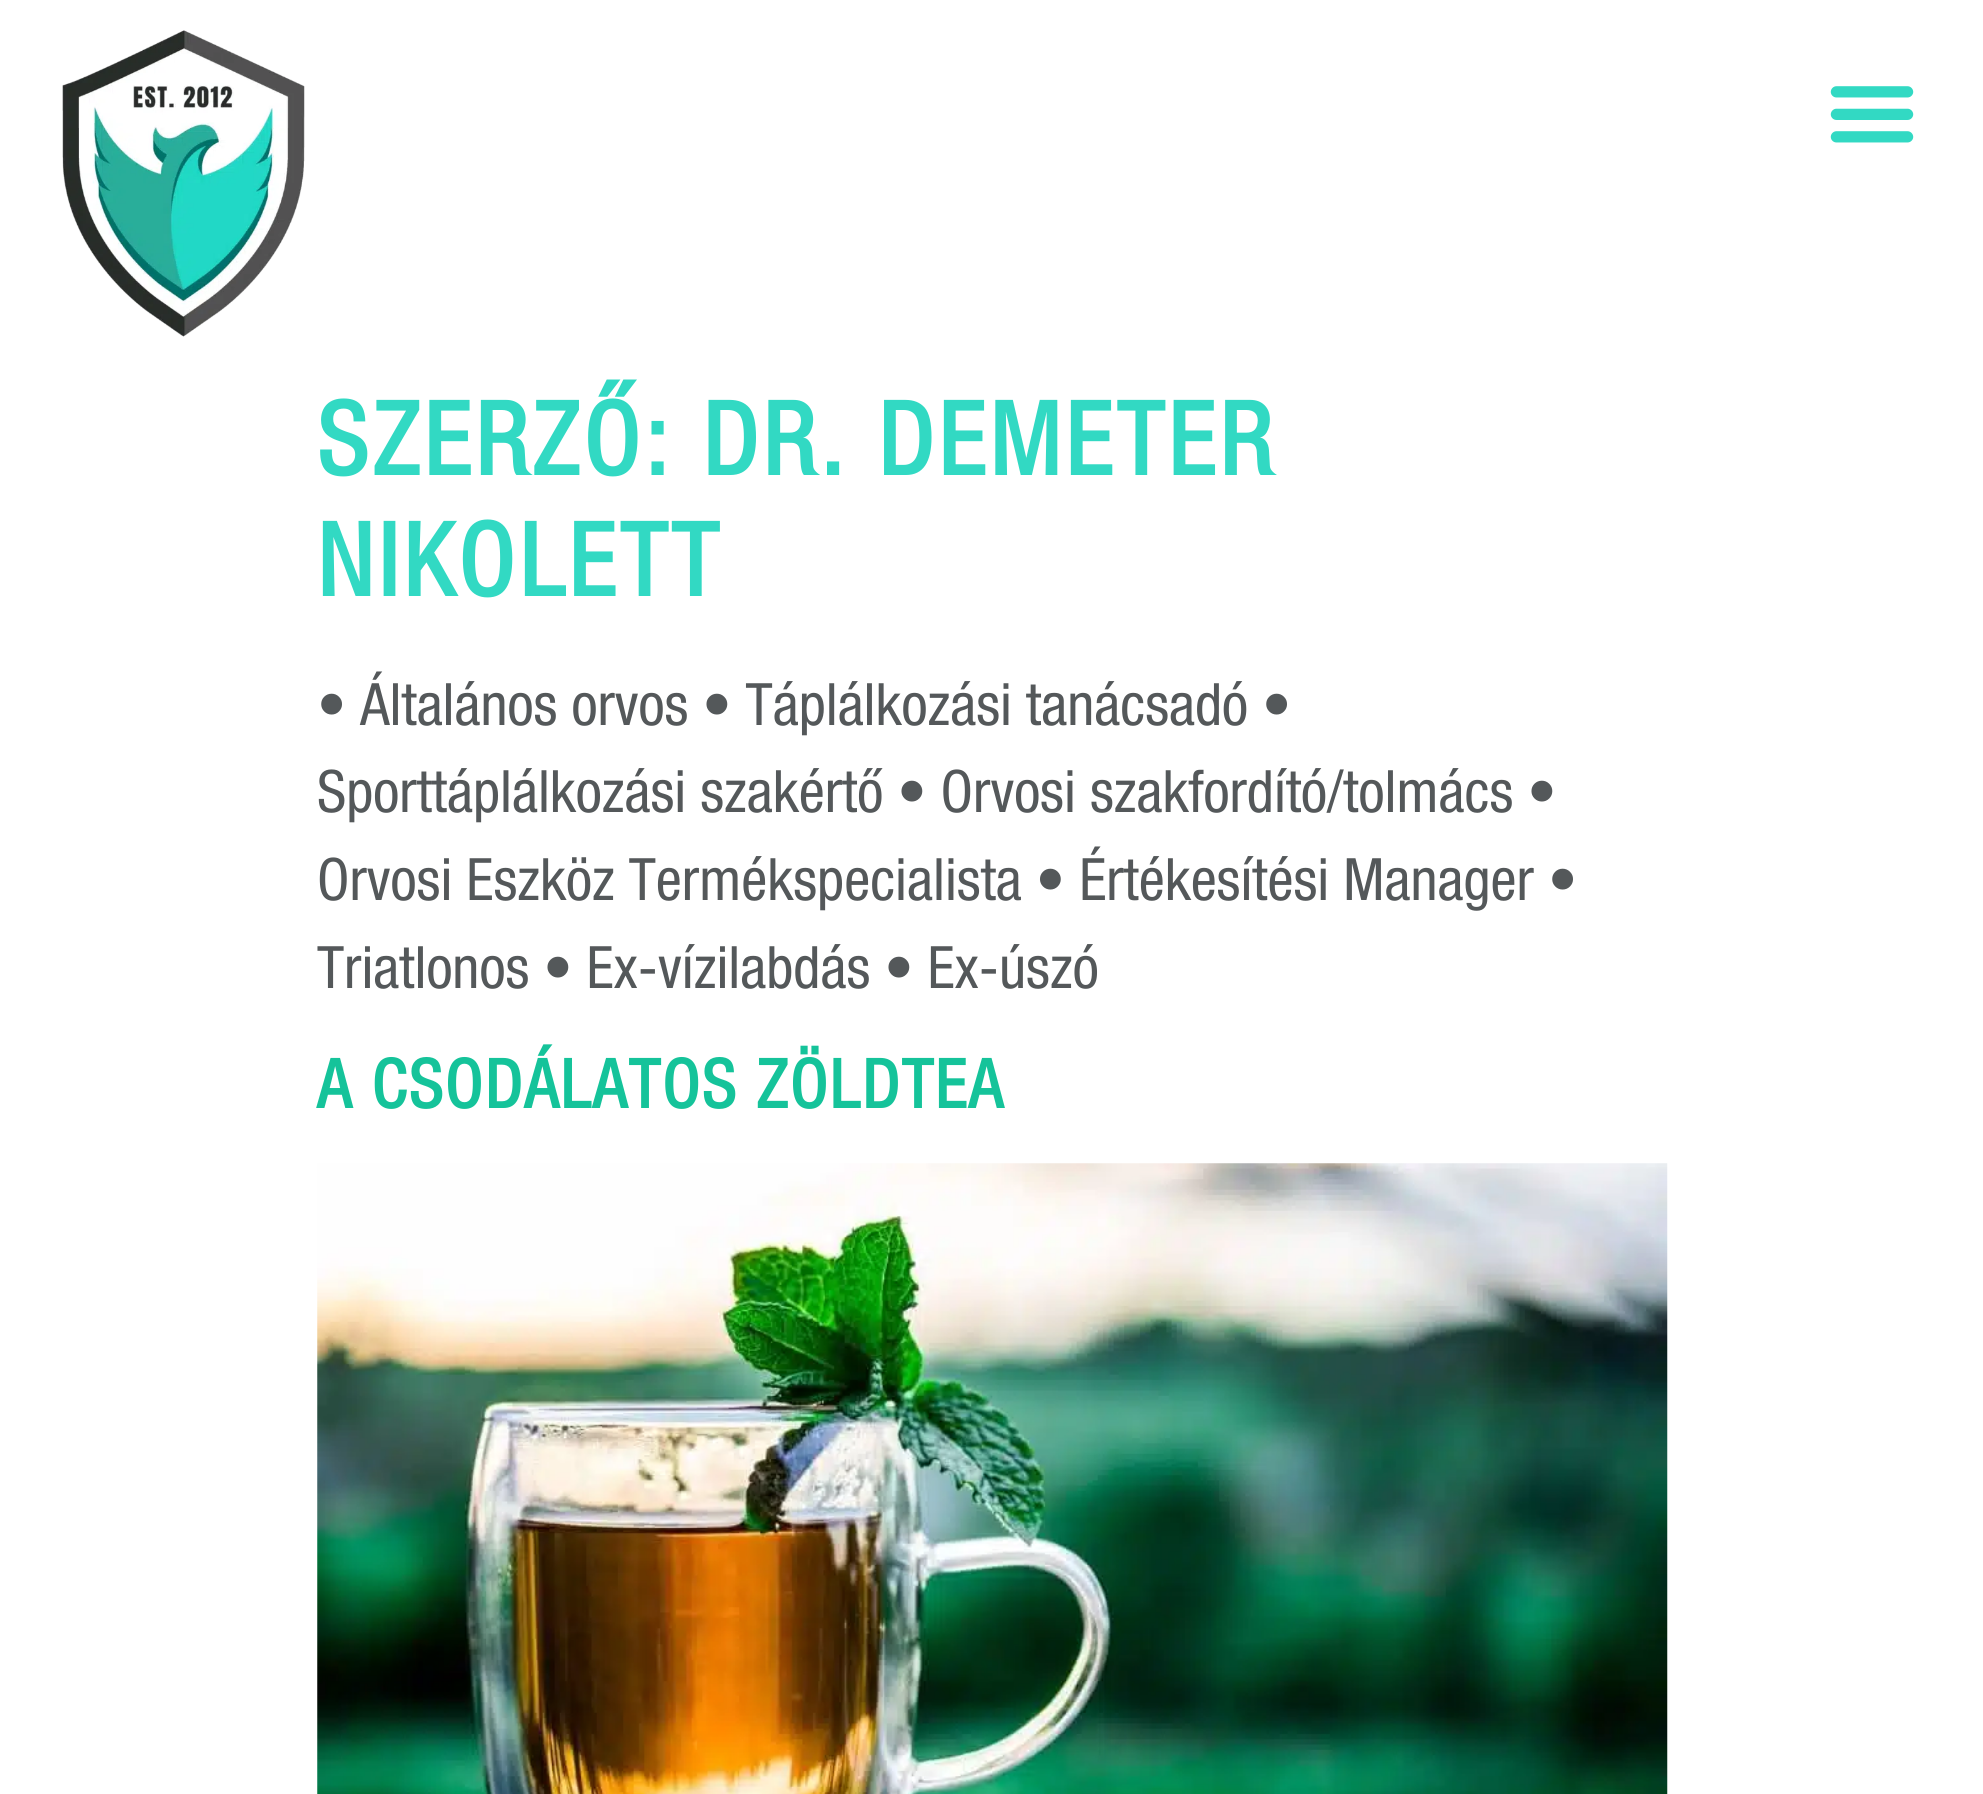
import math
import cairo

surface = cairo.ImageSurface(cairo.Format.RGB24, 1983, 1794)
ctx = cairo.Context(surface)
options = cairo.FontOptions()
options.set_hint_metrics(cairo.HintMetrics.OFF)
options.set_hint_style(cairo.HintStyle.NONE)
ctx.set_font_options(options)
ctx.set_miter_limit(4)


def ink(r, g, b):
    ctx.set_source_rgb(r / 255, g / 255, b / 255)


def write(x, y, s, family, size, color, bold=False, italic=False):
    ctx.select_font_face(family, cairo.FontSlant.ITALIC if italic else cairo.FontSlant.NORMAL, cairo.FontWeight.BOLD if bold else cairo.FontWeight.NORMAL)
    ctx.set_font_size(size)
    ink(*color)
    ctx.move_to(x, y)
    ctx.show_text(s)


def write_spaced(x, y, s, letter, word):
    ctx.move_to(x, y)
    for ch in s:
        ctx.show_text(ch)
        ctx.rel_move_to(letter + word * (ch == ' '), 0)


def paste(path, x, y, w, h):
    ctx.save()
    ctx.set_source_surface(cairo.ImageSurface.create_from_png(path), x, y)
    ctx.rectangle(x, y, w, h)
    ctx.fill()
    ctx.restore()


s1 = dict(family="Helvetica NEUE", size=58.5, color=(84, 88, 90))

ink(255, 255, 255)
ctx.paint()
paste("pic1.png", 62, 30, 243, 307)
paste("pic2.png", 1830, 86, 84, 57)
ctx.select_font_face("Helvetica NEUE", cairo.FontSlant.NORMAL, cairo.FontWeight.BOLD)
ctx.set_font_size(101.25)
ink(50, 217, 195)
write_spaced(317, 475, "SZERZŐ: DR. DEMETER", 4.5, 0)
write_spaced(317, 596, "NIKOLETT", 4.5, 0)
write(317, 725, "• Általános orvos • Táplálkozási tanácsadó •", **s1)
write(317, 812, "Sporttáplálkozási szakértő • Orvosi szakfordító/tolmács •", **s1)
write(317, 900, "Orvosi Eszköz Termékspecialista • Értékesítési Manager •", **s1)
write(317, 988, "Triatlonos • Ex-vízilabdás • Ex-úszó", **s1)
ctx.select_font_face("Helvetica NEUE", cairo.FontSlant.NORMAL, cairo.FontWeight.BOLD)
ctx.set_font_size(67.5)
ink(21, 195, 154)
write_spaced(317, 1108, "A CSODÁLATOS ZÖLDTEA", 2.25, 0)
paste("pic3.png", 317, 1163, 1351, 631)
surface.write_to_png("screenshot.png")
